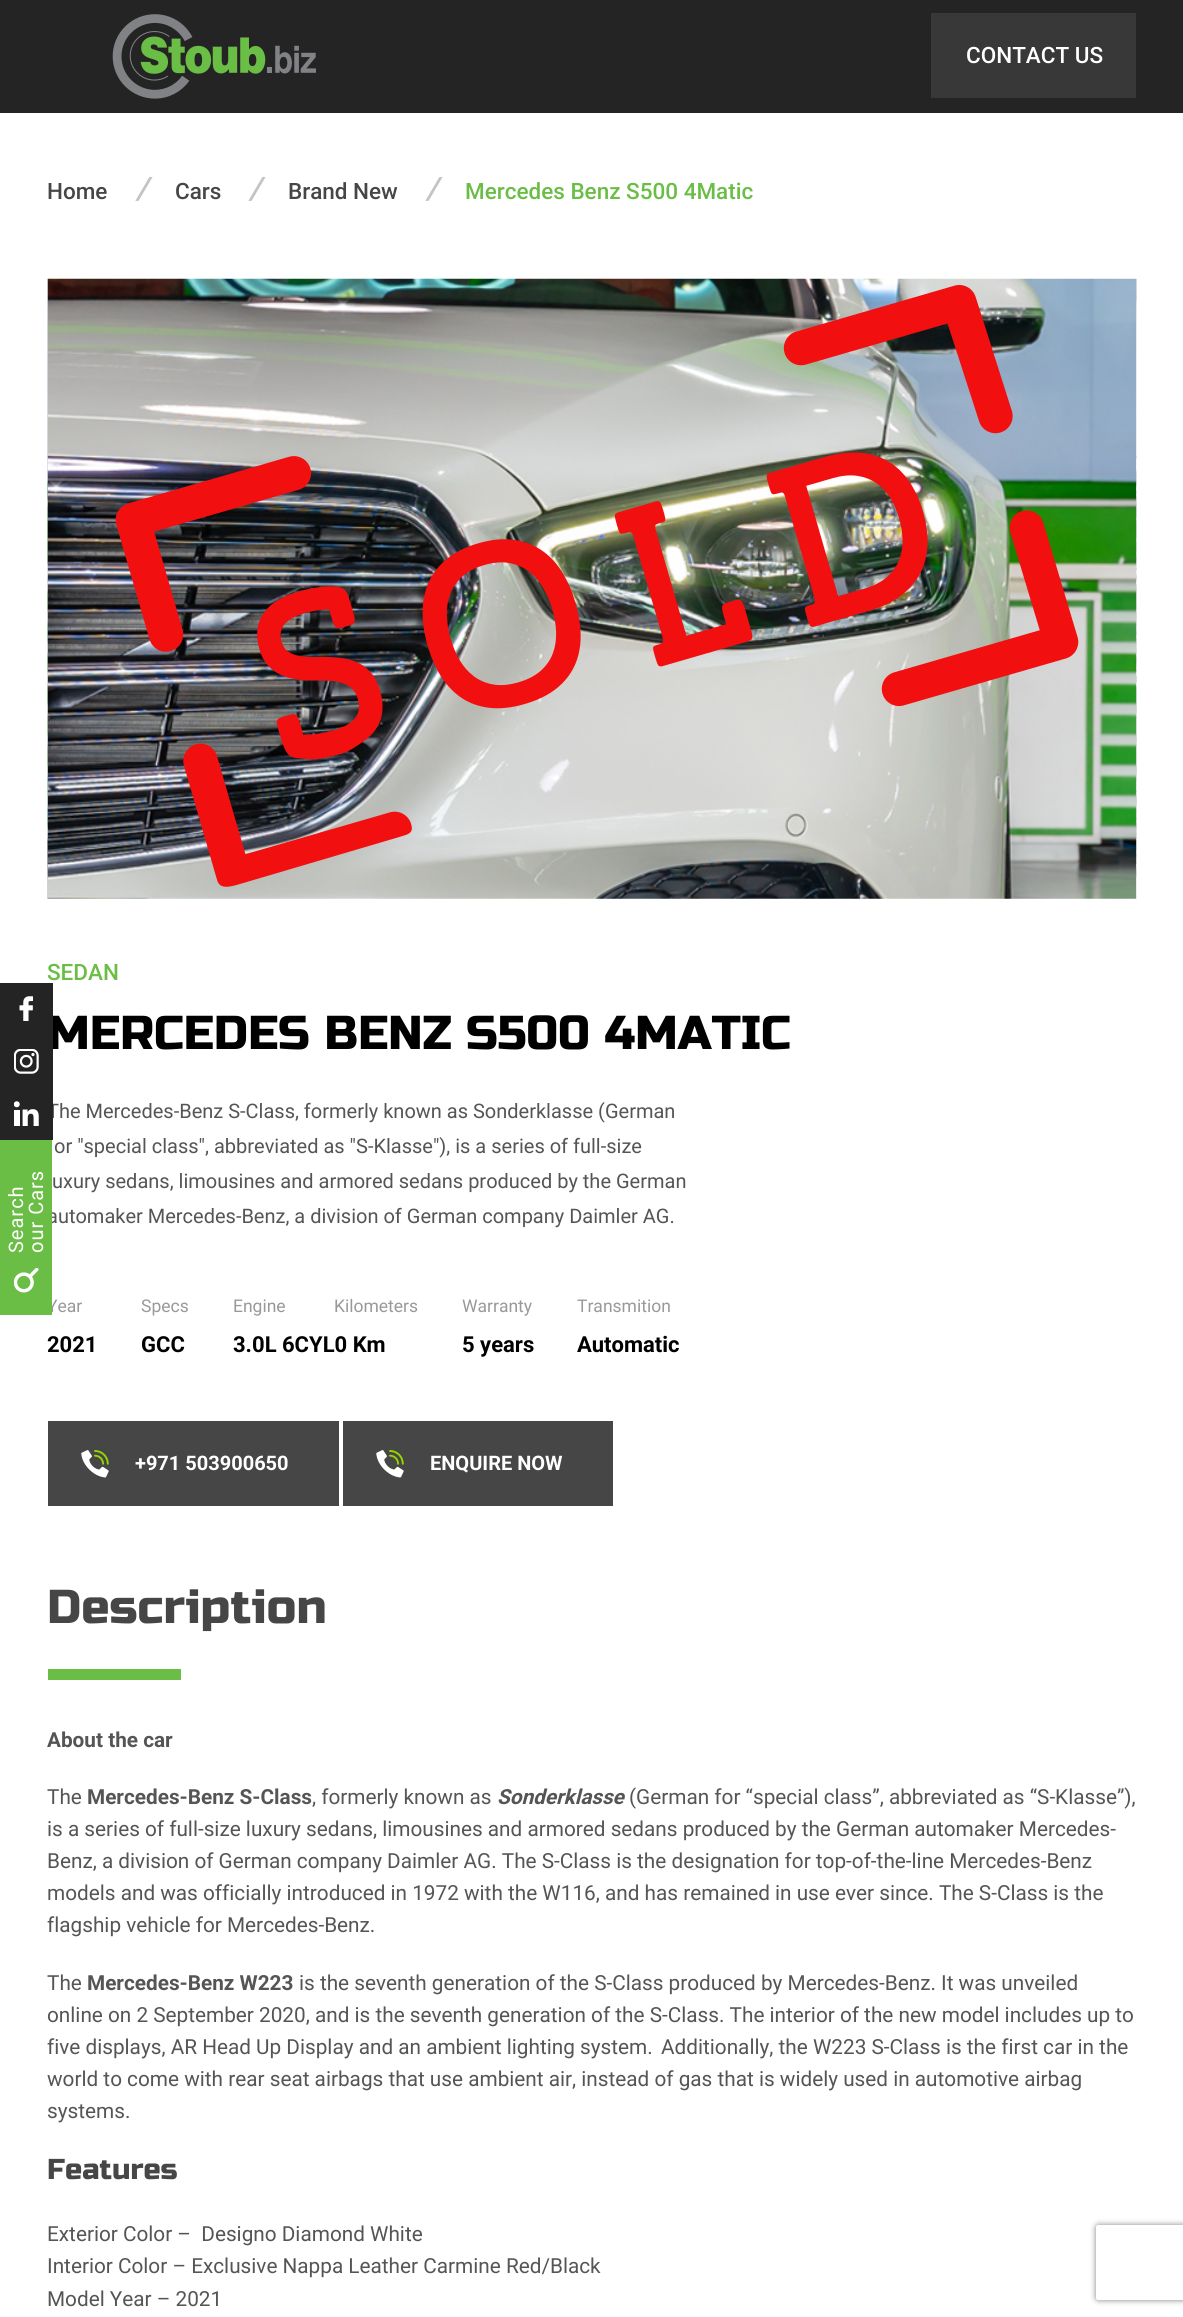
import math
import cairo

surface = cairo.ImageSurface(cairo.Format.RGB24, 1183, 2317)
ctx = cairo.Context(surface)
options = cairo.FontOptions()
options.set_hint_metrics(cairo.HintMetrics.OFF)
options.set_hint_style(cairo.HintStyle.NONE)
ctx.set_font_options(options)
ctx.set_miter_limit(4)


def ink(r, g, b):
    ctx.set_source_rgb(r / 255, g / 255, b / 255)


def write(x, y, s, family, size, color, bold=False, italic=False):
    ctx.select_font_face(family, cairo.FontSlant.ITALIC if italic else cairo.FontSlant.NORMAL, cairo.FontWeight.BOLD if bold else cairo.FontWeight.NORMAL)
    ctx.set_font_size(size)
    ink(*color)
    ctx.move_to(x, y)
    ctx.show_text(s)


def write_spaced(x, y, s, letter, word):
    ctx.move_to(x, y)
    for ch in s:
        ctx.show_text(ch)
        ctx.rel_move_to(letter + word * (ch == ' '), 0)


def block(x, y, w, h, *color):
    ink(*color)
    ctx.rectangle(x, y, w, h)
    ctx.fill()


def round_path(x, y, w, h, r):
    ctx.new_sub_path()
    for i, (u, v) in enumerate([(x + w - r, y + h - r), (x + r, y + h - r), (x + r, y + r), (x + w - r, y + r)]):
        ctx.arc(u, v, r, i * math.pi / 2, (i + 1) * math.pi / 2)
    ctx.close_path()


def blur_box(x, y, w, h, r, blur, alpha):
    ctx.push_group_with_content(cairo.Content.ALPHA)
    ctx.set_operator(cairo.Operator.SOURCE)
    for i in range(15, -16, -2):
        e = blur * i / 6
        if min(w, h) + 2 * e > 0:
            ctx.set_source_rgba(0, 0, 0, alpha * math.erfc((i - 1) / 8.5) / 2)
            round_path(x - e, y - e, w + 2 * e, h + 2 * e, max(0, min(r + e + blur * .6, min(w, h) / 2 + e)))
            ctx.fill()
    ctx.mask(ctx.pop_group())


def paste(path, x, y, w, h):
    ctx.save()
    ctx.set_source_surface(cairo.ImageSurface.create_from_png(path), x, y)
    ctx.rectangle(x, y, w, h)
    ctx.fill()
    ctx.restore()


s1 = dict(family="Roboto Medium", size=22.5, color=(255, 255, 255))
s2 = dict(family="Roboto Medium", size=22.5, color=(70, 70, 70))
s3 = dict(family="Roboto", size=31, color=(196, 196, 196), bold=True, italic=True)
s4 = dict(family="Roboto Medium", size=22.5, color=(106, 189, 69))
s5 = dict(family="Russo One", size=47.5, color=(0, 0, 0))
s6 = dict(family="Roboto", size=20, color=(85, 85, 85))
s7 = dict(family="Roboto", size=17.5, color=(153, 153, 153))
s8 = dict(family="Roboto", size=22, color=(0, 0, 0), bold=True)
s9 = dict(family="Roboto", size=20, color=(255, 255, 255), bold=True)
s10 = dict(family="Russo One", size=47.5, color=(70, 70, 70))
s11 = dict(family="Roboto", size=20.75, color=(85, 85, 85), bold=True)
s12 = dict(family="Roboto", size=20.75, color=(85, 85, 85))
s13 = dict(family="Roboto", size=20.75, color=(85, 85, 85), bold=True, italic=True)
s14 = dict(family="Russo One", size=28.75, color=(70, 70, 70))

ink(255, 255, 255)
ctx.paint()
block(0, 0, 1183, 113, 36, 36, 36)
paste("pic1.png", 112, 14, 204, 85)
block(931, 13, 205, 85, 56, 56, 56)
write(966, 63, "CONTACT US", **s1)
write(47, 199, "Home", **s2)
write(136, 199, "/", **s3)
write(175, 199, "Cars", **s2)
write(249, 199, "/", **s3)
write(288, 199, "Brand New", **s2)
write(426, 199, "/", **s3)
write(465, 199, "Mercedes Benz S500 4Matic", **s4)
write(47, 1049, "MERCEDES BENZ S500 4MATIC", **s5)
write(47, 1118, "The Mercedes-Benz S-Class, formerly known as Sonderklasse (German", **s6)
block(0, 983, 53, 157, 36, 36, 36)
paste("pic2.png", 19, 996, 14, 25)
paste("pic3.png", 14, 1049, 25, 25)
paste("pic4.png", 14, 1101, 25, 25)
write(47, 1223, "automaker Mercedes-Benz, a division of German company Daimler AG.", **s6)
write(47, 1312, "Year", **s7)
block(0, 1140, 52, 175, 106, 189, 69)
paste("pic5.png", 13, 1268, 26, 25)
ctx.set_font_size(20)
ink(255, 255, 255)
ctx.save()
ctx.translate(23, 1253)
ctx.rotate(-90 * math.pi / 180)
write_spaced(0, 0, "Search", 1, 0)
ctx.restore()
ctx.save()
ctx.translate(43, 1253)
ctx.rotate(-90 * math.pi / 180)
write_spaced(0, 0, "our Cars", 1, 0)
ctx.restore()
paste("pic6.png", 47, 278, 1090, 621)
paste("pic7.png", 115, 285, 964, 602)
write(47, 980, "SEDAN", **s4)
write(54, 1153, "or \"special class\", abbreviated as \"S-Klasse\"), is a series of full-size", **s6)
write(52, 1188, "uxury sedans, limousines and armored sedans produced by the German", **s6)
write(47, 1352, "2021", **s8)
write(141, 1312, "Specs", **s7)
write(141, 1352, "GCC", **s8)
write(334, 1312, "Kilometers", **s7)
write(233, 1312, "Engine", **s7)
write(233, 1352, "3.0L 6CYL0 Km", **s8)
write(462, 1312, "Warranty", **s7)
write(462, 1352, "5 years", **s8)
write(577, 1312, "Transmition", **s7)
write(577, 1352, "Automatic", **s8)
block(48, 1421, 291, 85, 70, 70, 70)
paste("pic8.png", 81, 1450, 28, 28)
write(135, 1470, "+971 503900650", **s9)
block(343, 1421, 270, 85, 70, 70, 70)
paste("pic8.png", 376, 1450, 28, 28)
write(430, 1470, "ENQUIRE NOW", **s9)
write(47, 1623, "Description", **s10)
block(48, 1669, 133, 11, 106, 189, 69)
write(47, 1747, "About the car", **s11)
write(47, 1804, "The", **s12)
write(87, 1804, "Mercedes-Benz S-Class", **s11)
write(312, 1804, ", formerly known as", **s12)
write(497, 1804, "Sonderklasse", **s13)
write(629, 1804, "(German for “special class”, abbreviated as “S-Klasse”),", **s12)
write(47, 1836, "is a series of full-size luxury sedans, limousines and armored sedans produced by the German automaker Mercedes-", **s12)
write(47, 1868, "Benz, a division of German company Daimler AG. The S-Class is the designation for top-of-the-line Mercedes-Benz", **s12)
write(47, 1900, "models and was officially introduced in 1972 with the W116, and has remained in use ever since. The S-Class is the", **s12)
write(47, 1932, "flagship vehicle for Mercedes-Benz.", **s12)
write(47, 1990, "The", **s12)
write(87, 1990, "Mercedes-Benz W223", **s11)
write(299, 1990, "is the seventh generation of the S-Class produced by Mercedes-Benz. It was unveiled", **s12)
write(47, 2022, "online on 2 September 2020, and is the seventh generation of the S-Class. The interior of the new model includes up to", **s12)
write(47, 2054, "five displays, AR Head Up Display and an ambient lighting system.", **s12)
write(661, 2054, "Additionally, the W223 S-Class is the first car in the", **s12)
write(47, 2086, "world to come with rear seat airbags that use ambient air, instead of gas that is widely used in automotive airbag", **s12)
write(47, 2118, "systems.", **s12)
write(47, 2179, "Features", **s14)
write(47, 2241, "Exterior Color –  Designo Diamond White", **s12)
write(47, 2273, "Interior Color – Exclusive Nappa Leather Carmine Red/Black", **s12)
write(47, 2306, "Model Year – 2021", **s12)
ctx.save()
ctx.set_fill_rule(cairo.FillRule.EVEN_ODD)
ctx.new_path()
ctx.move_to(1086, 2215)
ctx.line_to(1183, 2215)
ctx.line_to(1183, 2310)
ctx.line_to(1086, 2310)
ctx.close_path()
ctx.move_to(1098.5, 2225)
ctx.line_to(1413.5, 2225)
ctx.curve_to(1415, 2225, 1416, 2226, 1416, 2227.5)
ctx.line_to(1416, 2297.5)
ctx.curve_to(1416, 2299, 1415, 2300, 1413.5, 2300)
ctx.line_to(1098.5, 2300)
ctx.curve_to(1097, 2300, 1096, 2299, 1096, 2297.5)
ctx.line_to(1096, 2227.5)
ctx.curve_to(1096, 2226, 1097, 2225, 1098.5, 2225)
ctx.close_path()
ctx.clip()
ink(128, 128, 128)
blur_box(1096, 2225, 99, 75, 2.5, 3, 1)
ctx.restore()
surface.write_to_png("screenshot.png")
